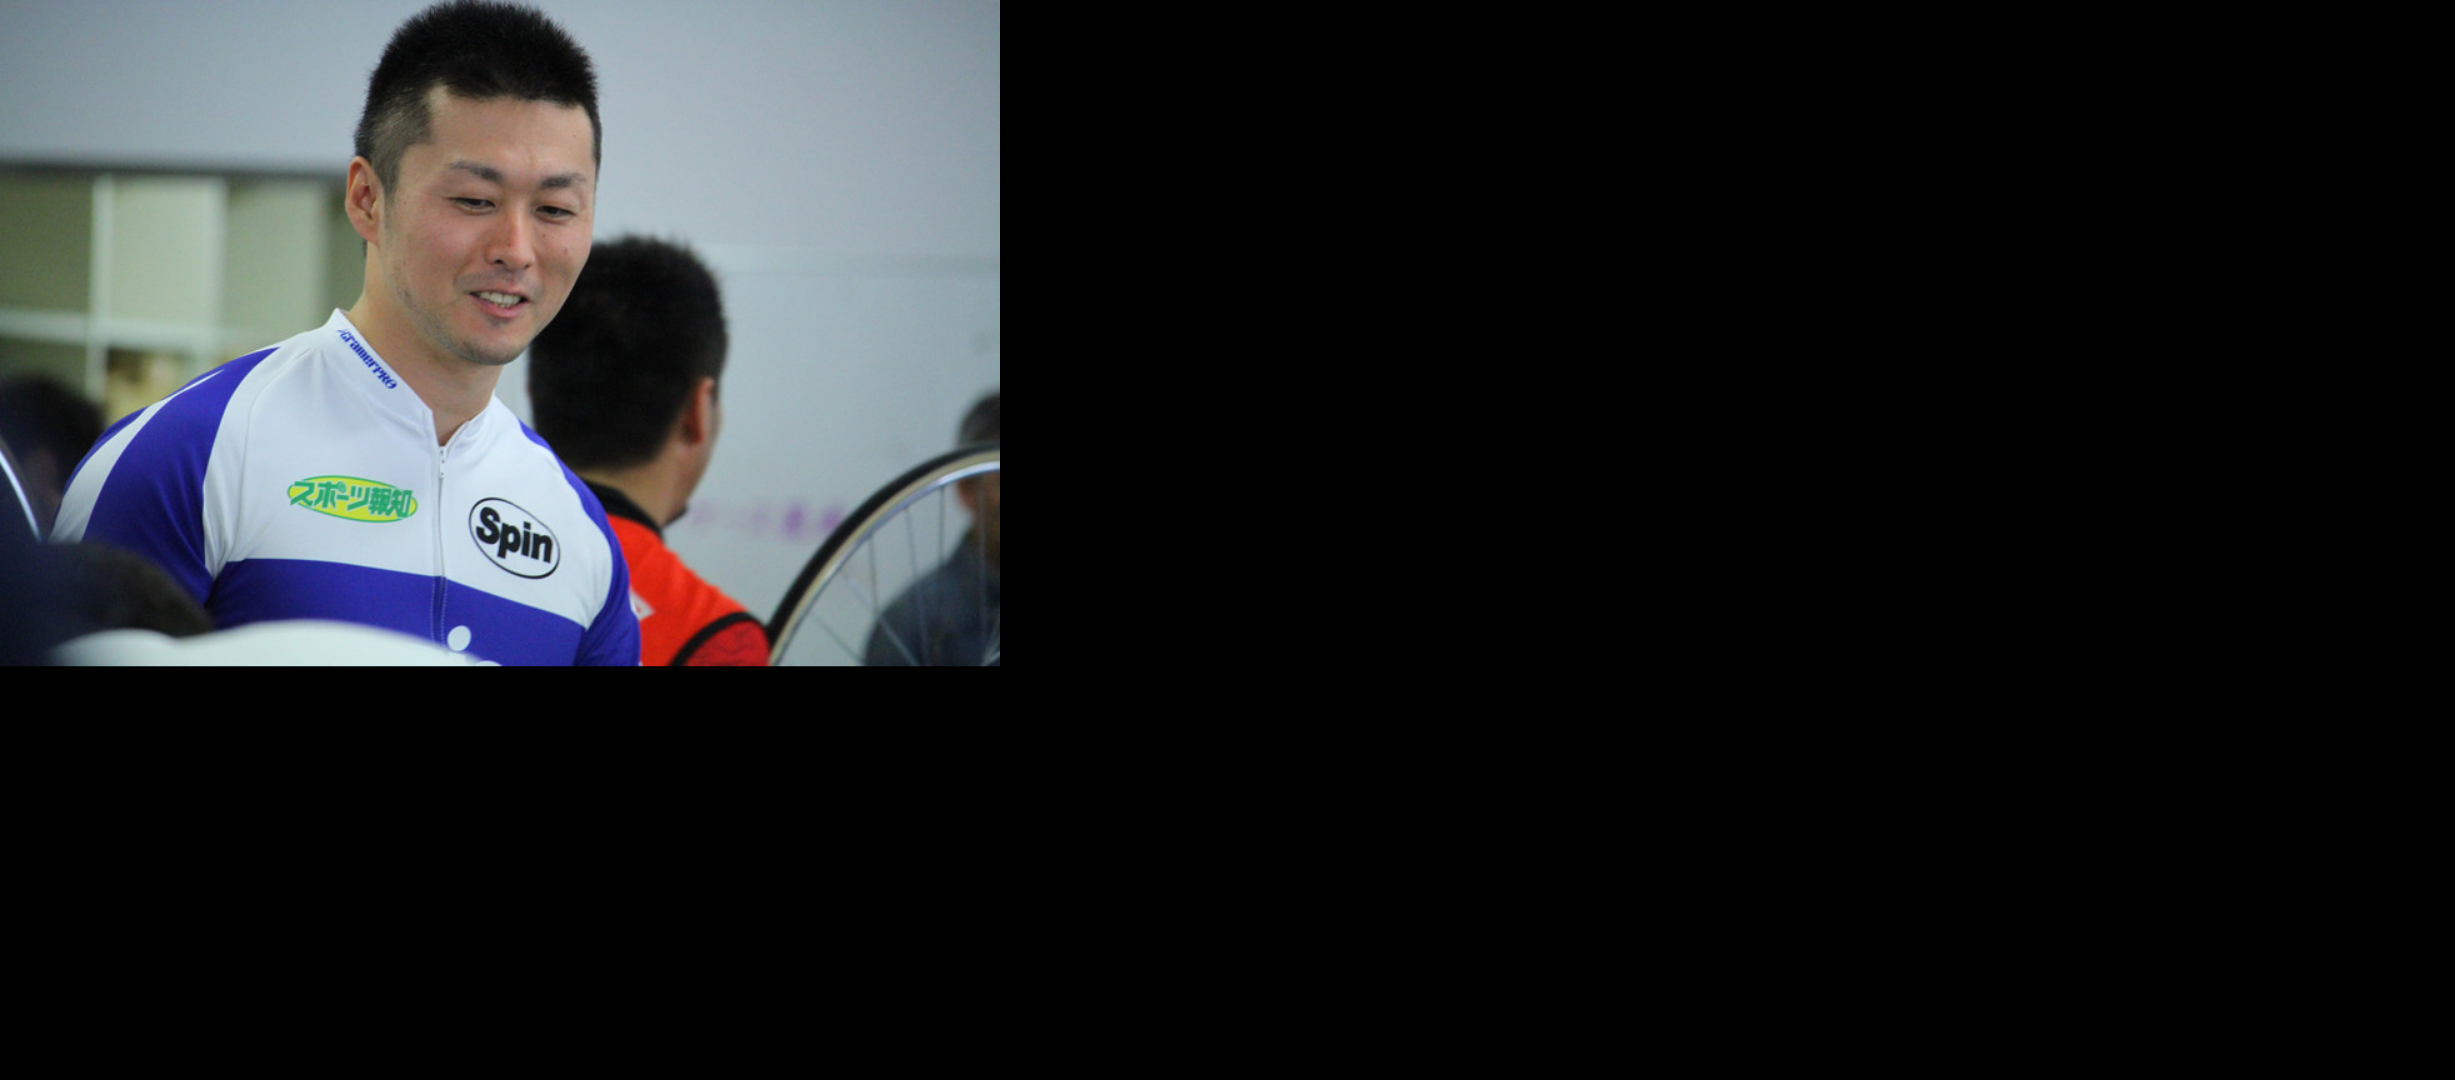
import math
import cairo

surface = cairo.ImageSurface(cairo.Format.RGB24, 2455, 1080)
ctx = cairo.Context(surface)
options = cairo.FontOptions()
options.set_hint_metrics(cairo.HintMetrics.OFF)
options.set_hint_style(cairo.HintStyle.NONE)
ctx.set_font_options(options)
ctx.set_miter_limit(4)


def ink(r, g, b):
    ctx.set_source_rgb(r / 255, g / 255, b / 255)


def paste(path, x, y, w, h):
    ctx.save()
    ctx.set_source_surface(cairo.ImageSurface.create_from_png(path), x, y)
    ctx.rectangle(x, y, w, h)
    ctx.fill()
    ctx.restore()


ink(0, 0, 0)
ctx.paint()
paste("pic1.png", 0, 0, 1000, 667)
surface.write_to_png("screenshot.png")
